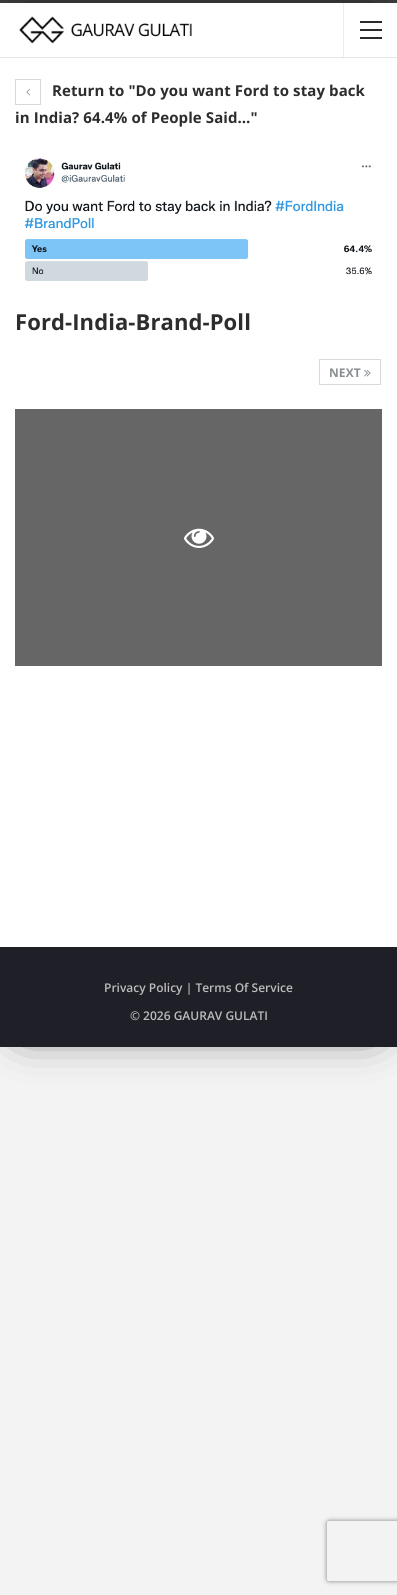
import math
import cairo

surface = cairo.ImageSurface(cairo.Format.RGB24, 397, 1595)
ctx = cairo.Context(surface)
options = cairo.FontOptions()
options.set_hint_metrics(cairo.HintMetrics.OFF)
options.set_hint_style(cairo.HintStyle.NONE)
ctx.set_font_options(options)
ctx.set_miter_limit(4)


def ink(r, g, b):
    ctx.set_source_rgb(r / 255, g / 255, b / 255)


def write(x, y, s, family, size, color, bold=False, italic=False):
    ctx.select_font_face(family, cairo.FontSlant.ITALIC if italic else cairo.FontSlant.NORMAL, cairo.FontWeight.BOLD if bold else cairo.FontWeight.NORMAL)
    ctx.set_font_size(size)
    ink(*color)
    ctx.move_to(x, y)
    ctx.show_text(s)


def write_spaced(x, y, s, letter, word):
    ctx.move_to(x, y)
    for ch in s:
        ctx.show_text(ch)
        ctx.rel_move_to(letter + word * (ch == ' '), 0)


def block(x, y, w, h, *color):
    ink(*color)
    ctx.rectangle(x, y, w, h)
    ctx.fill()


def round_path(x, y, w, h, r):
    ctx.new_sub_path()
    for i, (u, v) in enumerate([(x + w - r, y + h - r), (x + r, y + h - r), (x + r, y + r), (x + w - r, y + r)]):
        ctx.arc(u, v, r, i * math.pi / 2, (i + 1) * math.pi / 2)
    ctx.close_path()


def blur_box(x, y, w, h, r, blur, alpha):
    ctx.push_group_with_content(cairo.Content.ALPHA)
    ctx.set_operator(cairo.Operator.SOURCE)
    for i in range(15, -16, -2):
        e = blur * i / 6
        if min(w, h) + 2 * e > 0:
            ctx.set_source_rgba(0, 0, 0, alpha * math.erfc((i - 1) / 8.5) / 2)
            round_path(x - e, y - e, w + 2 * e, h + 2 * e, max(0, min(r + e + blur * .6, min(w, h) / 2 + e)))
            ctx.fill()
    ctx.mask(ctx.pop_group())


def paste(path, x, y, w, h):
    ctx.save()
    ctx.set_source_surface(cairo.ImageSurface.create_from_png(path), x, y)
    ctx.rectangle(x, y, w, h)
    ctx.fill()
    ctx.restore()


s1 = dict(family="Open Sans SemiBold", size=12, color=(188, 188, 190))

ink(243, 243, 243)
ctx.paint()
block(0, 0, 397, 3, 61, 61, 61)
ink(0, 0, 0)
blur_box(25, 28, 347, 994, 0, 25, 1)
block(0, 3, 397, 944, 255, 255, 255)
block(0, 57, 397, 1, 229, 229, 229)
paste("pic1.png", 19, 16, 173, 28)
block(343, 3, 1, 54, 237, 237, 237)
block(360, 29, 22, 2, 44, 44, 44)
block(360, 21, 22, 2, 44, 44, 44)
block(360, 37, 22, 2, 44, 44, 44)
ctx.rectangle(15.5, 79.5, 25, 25)
ink(216, 216, 216)
ctx.set_line_width(1)
ctx.stroke()
paste("pic2.png", 26, 88, 5, 8)
ctx.select_font_face("Open Sans", cairo.FontSlant.NORMAL, cairo.FontWeight.BOLD)
ctx.set_font_size(15)
ink(45, 45, 45)
write_spaced(52, 96, "Return to \"Do you want Ford to stay back", 0.1, 0)
write_spaced(15, 123, "in India? 64.4% of People Said…\"", 0.1, 0)
paste("pic3.png", 24, 158, 348, 123)
ctx.set_font_size(22)
write_spaced(15, 330, "Ford-India-Brand-Poll", 0.1, 0)
ctx.rectangle(319.5, 359.5, 61, 25)
ink(218, 218, 218)
ctx.stroke()
ctx.set_font_size(12)
ink(138, 143, 146)
write_spaced(329, 377, "NEXT", 0.1, 0)
paste("pic4.png", 364, 369, 7, 8)
block(15, 409, 367, 257, 102, 102, 102)
paste("pic5.png", 184, 528, 30, 20)
block(0, 947, 397, 100, 31, 32, 39)
write(104, 992, "Privacy Policy | Terms Of Service", **s1)
write(130, 1020, "© 2026 GAURAV GULATI", **s1)
ctx.save()
ctx.set_fill_rule(cairo.FillRule.EVEN_ODD)
ctx.new_path()
ctx.move_to(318, 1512)
ctx.line_to(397, 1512)
ctx.line_to(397, 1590)
ctx.line_to(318, 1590)
ctx.close_path()
ctx.move_to(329, 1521)
ctx.line_to(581, 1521)
ctx.curve_to(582, 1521, 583, 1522, 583, 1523)
ctx.line_to(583, 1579)
ctx.curve_to(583, 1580, 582, 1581, 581, 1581)
ctx.line_to(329, 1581)
ctx.curve_to(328, 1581, 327, 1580, 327, 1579)
ctx.line_to(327, 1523)
ctx.curve_to(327, 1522, 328, 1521, 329, 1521)
ctx.close_path()
ctx.clip()
ink(128, 128, 128)
blur_box(327, 1521, 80, 60, 2, 2.5, 1)
ctx.restore()
surface.write_to_png("screenshot.png")
